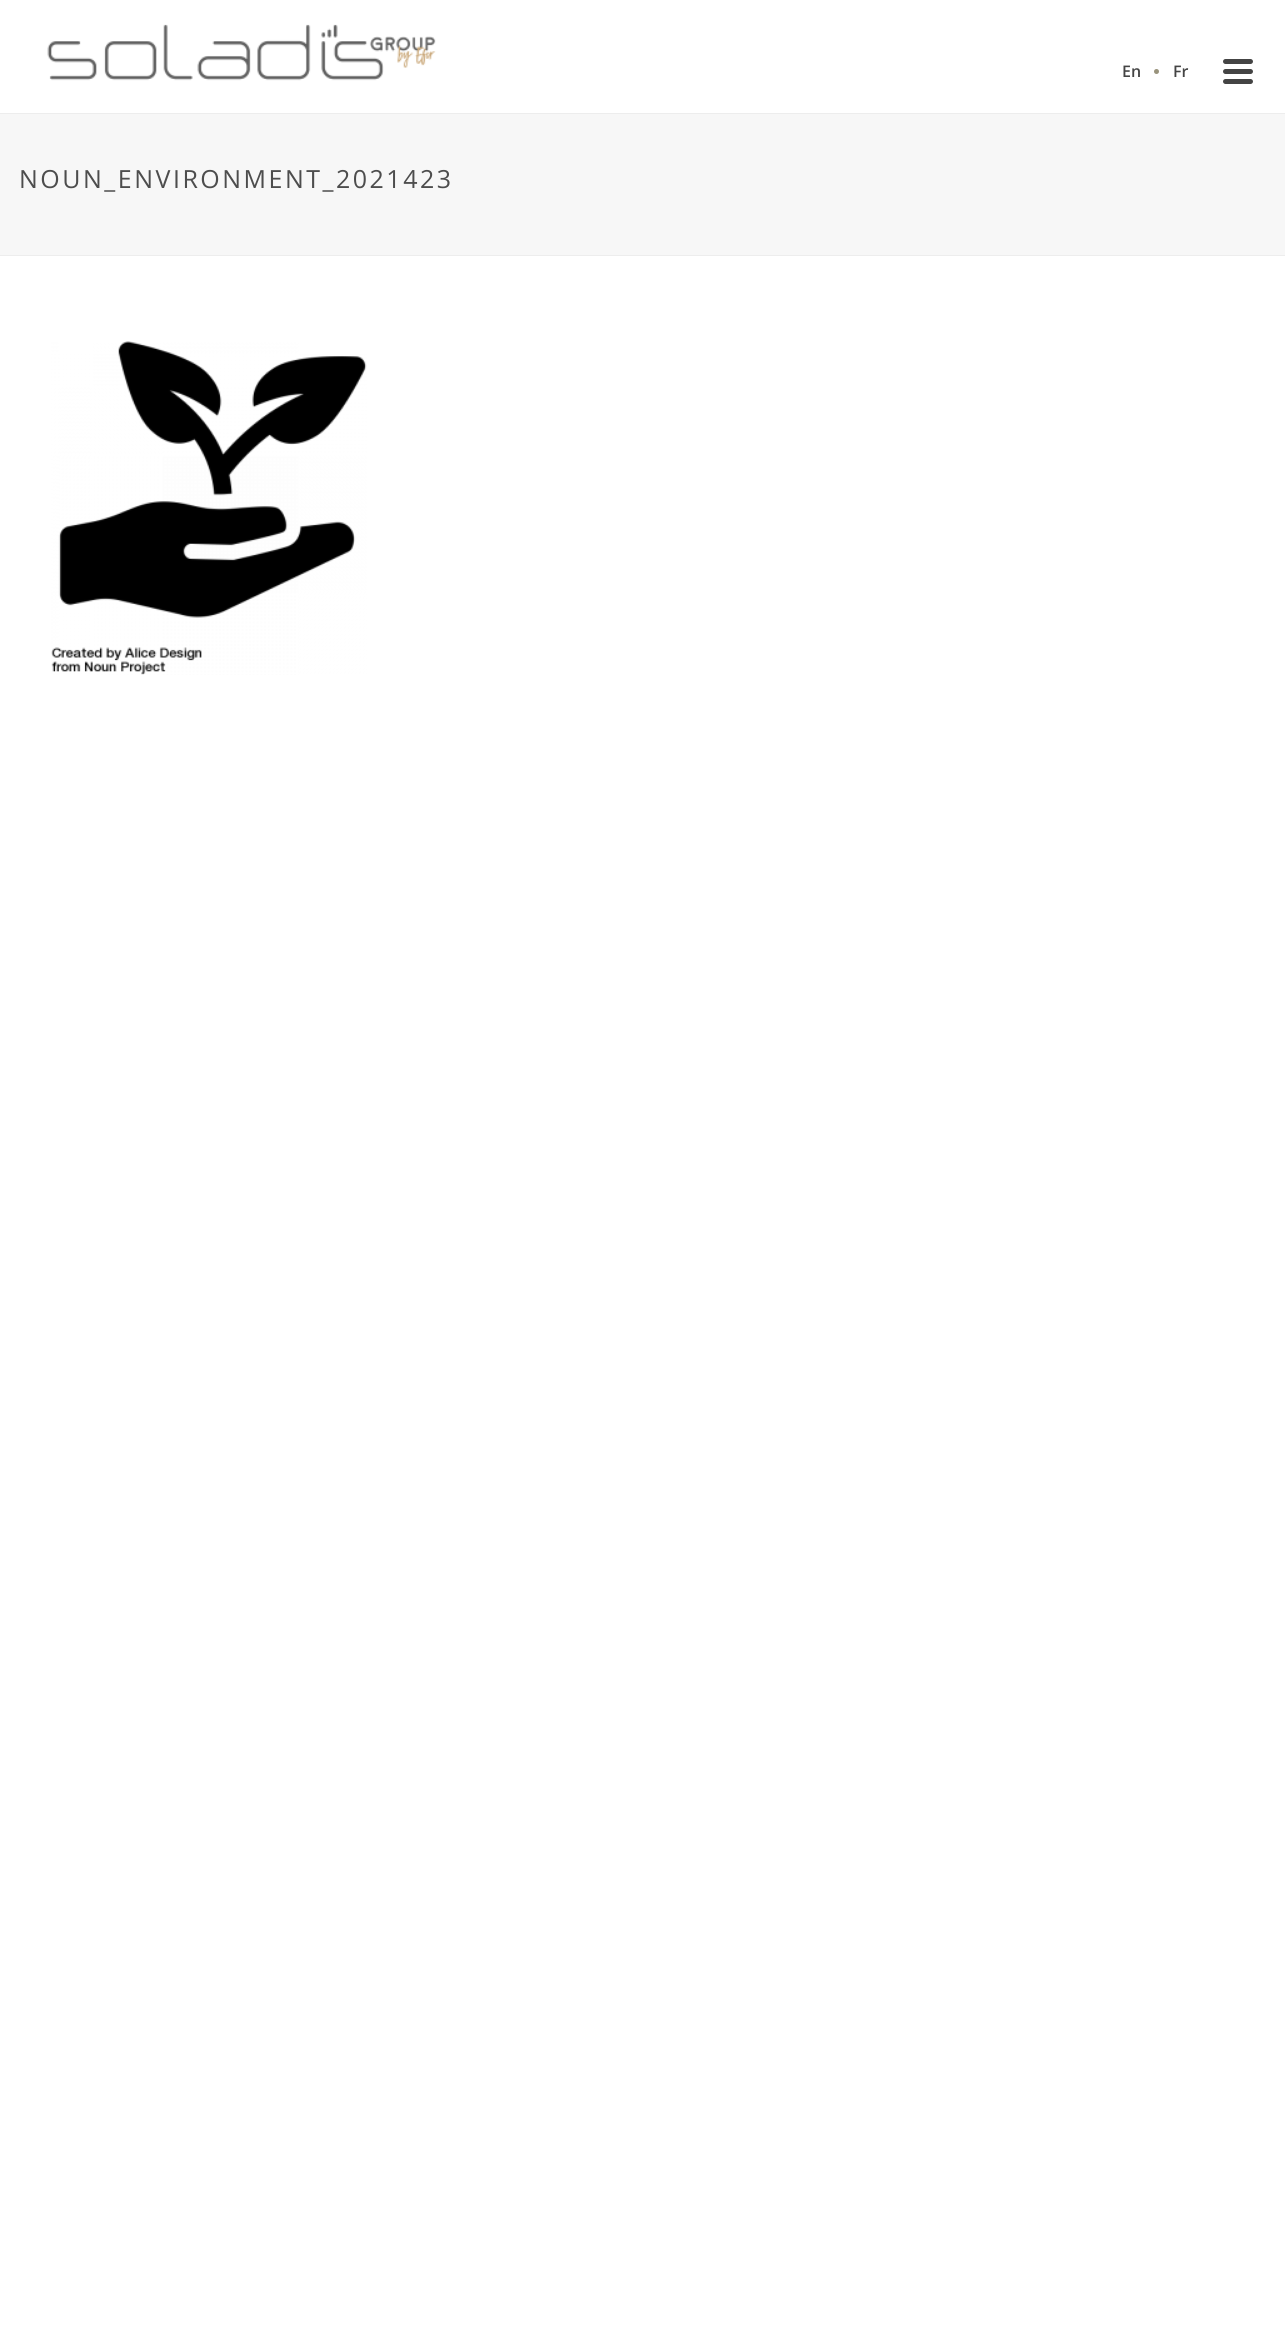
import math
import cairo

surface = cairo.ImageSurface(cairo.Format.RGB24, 1285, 2345)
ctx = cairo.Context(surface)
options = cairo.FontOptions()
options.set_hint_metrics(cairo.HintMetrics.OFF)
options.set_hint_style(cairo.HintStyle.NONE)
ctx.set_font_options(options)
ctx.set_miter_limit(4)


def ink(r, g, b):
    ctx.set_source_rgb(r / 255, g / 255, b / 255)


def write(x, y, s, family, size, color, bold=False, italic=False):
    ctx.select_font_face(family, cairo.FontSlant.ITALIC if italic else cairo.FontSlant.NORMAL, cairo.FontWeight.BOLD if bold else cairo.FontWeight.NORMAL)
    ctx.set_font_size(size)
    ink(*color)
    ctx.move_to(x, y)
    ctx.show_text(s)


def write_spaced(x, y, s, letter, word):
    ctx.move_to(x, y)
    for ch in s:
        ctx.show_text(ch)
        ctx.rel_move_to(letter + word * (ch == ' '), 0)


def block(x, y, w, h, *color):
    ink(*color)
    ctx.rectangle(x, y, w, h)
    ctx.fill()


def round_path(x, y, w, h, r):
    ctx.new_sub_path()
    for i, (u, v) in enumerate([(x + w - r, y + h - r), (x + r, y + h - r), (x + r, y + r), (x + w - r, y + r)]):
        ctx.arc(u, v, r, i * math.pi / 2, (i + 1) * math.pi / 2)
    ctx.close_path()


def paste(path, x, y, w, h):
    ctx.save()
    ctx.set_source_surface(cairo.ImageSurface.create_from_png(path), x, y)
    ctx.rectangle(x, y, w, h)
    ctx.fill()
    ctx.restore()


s1 = dict(family="Open Sans SemiBold", size=16, color=(68, 68, 68))

ink(255, 255, 255)
ctx.paint()
block(0, 114, 1285, 141, 247, 247, 247)
block(0, 255, 1285, 1, 237, 237, 237)
block(0, 113, 1285, 1, 237, 237, 237)
paste("pic1.png", 47, 24, 389, 57)
write(1122, 77, "En", **s1)
ink(153, 147, 124)
ctx.new_path()
ctx.arc(1156.5, 71.5, 2.5, 0, 2 * math.pi)
ctx.fill()
write(1173, 77, "Fr", **s1)
round_path(1223, 59, 30, 5, 2.5)
ctx.fill()
round_path(1223, 69, 30, 5, 2.5)
ctx.fill()
round_path(1223, 79, 30, 5, 2.5)
ctx.fill()
ctx.select_font_face("Open Sans")
ctx.set_font_size(25)
ink(77, 77, 77)
write_spaced(19, 188, "NOUN_ENVIRONMENT_2021423", 2.5, 0)
paste("pic2.png", 51, 341, 316, 334)
surface.write_to_png("screenshot.png")
